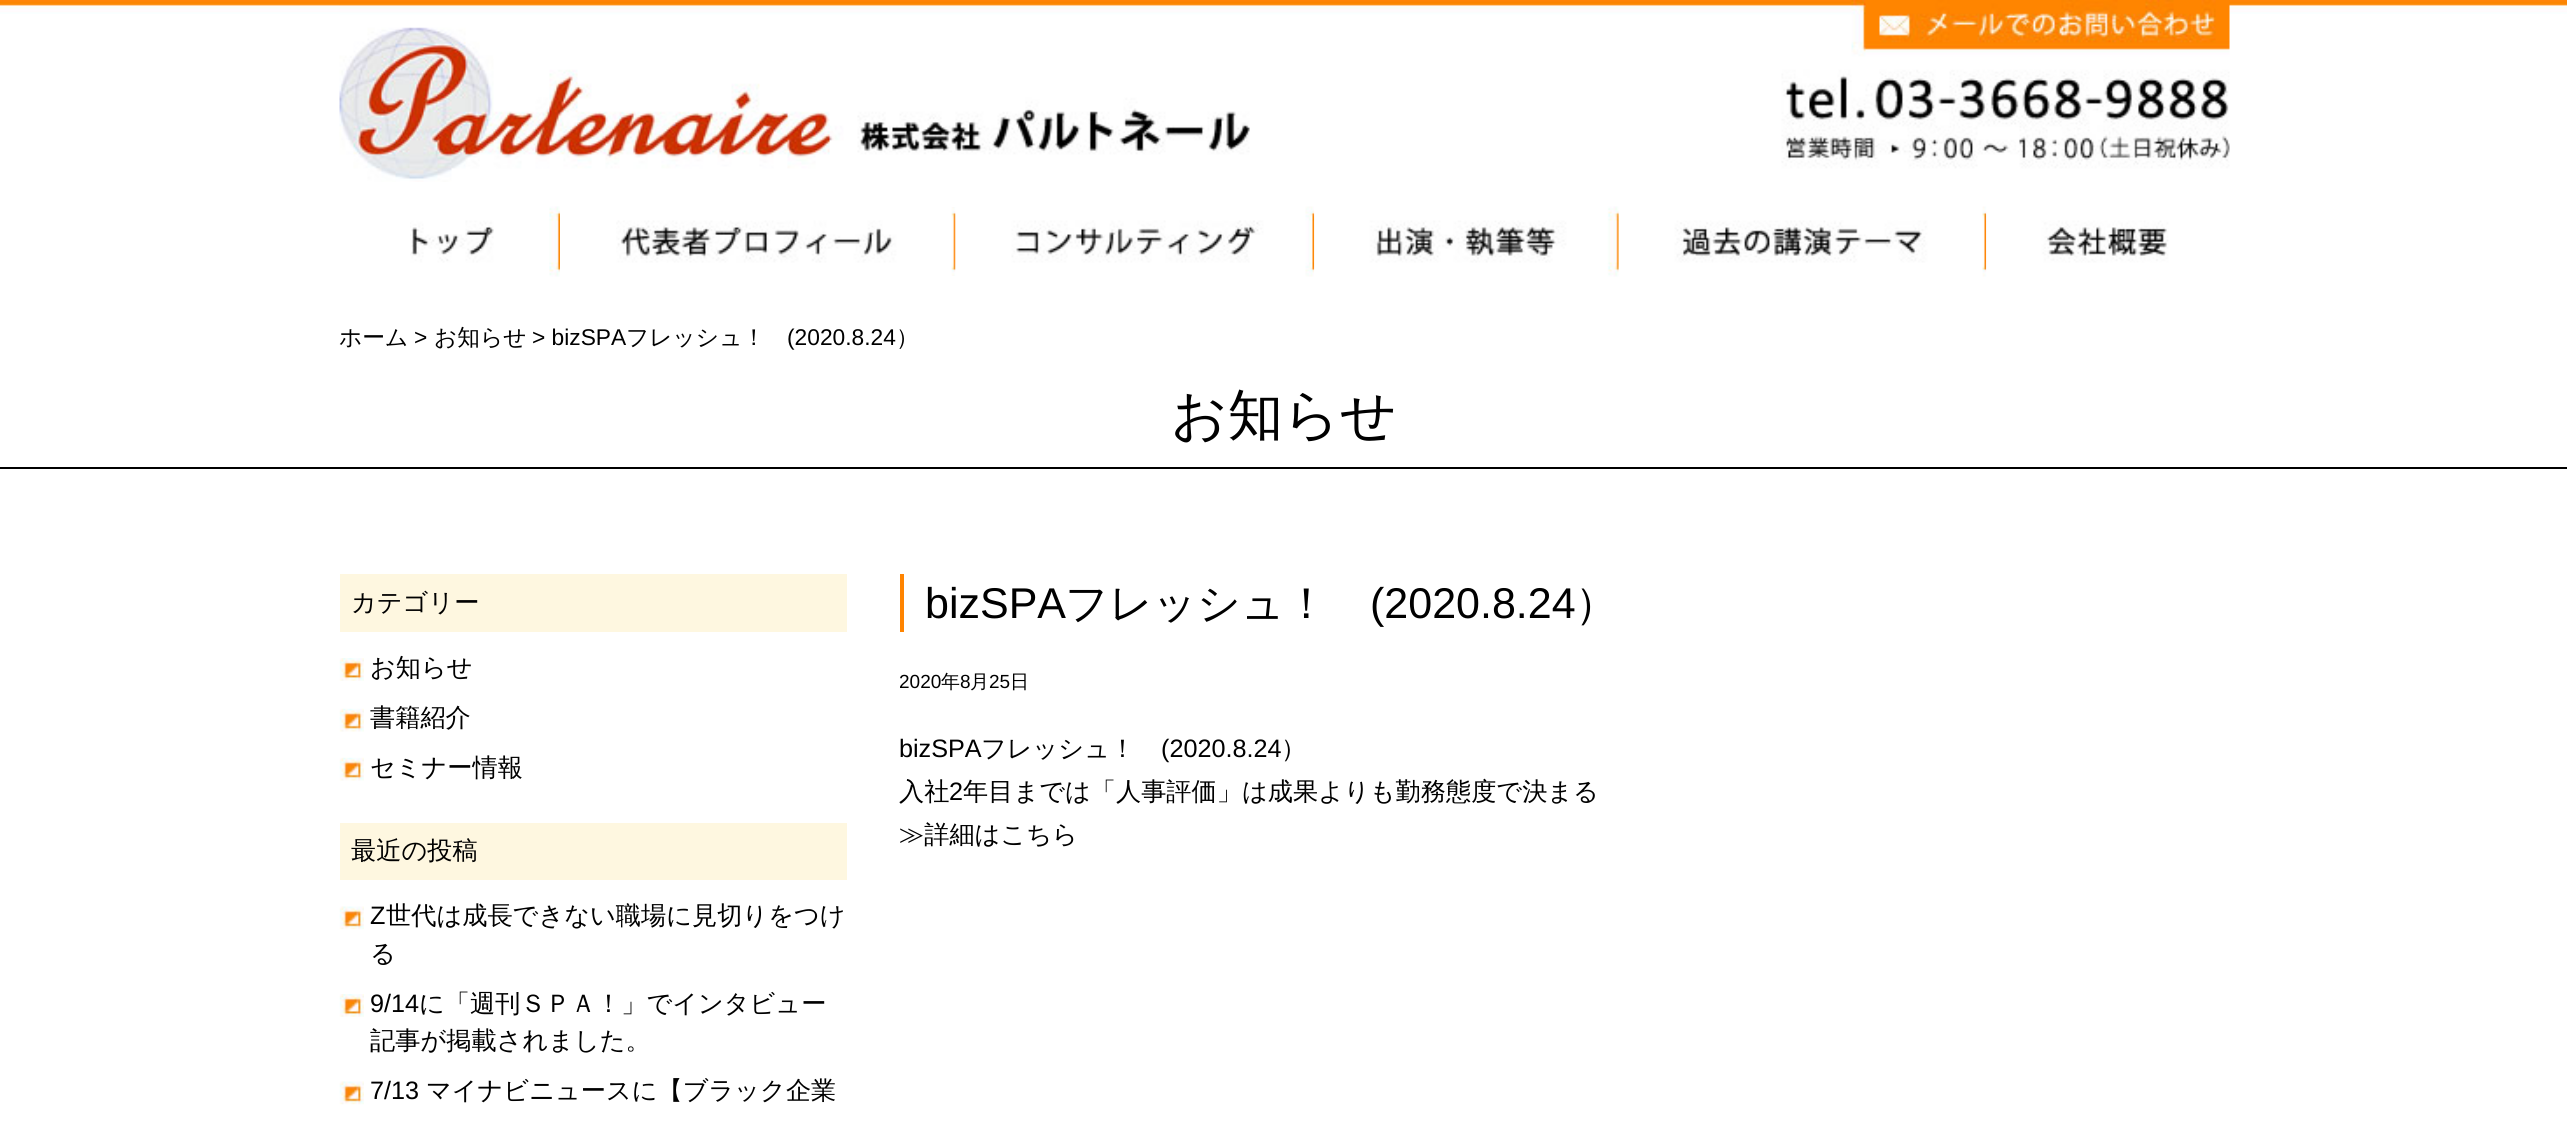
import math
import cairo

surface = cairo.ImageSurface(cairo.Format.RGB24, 2567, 1132)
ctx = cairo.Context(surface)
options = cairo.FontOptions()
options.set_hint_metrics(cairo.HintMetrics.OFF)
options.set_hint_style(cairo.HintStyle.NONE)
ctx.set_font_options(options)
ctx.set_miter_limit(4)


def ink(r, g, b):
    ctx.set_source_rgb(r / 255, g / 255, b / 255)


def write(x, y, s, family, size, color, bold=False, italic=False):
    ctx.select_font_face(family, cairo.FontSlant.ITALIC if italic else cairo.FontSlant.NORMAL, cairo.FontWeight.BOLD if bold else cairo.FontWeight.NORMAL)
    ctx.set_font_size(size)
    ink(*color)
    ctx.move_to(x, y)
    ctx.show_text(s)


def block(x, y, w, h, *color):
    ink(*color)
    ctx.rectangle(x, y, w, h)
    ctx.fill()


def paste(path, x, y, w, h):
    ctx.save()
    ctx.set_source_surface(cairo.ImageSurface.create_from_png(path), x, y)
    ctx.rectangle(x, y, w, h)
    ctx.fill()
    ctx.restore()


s1 = dict(family="WenQuanYi Zen Hei Medium", size=22.75, color=(0, 0, 0))
s2 = dict(family="Liberation Sans", size=22.75, color=(0, 0, 0))
s3 = dict(family="WenQuanYi Zen Hei Medium", size=55.5, color=(0, 0, 0))
s4 = dict(family="WenQuanYi Zen Hei Medium", size=25.2, color=(0, 0, 0))
s5 = dict(family="Liberation Sans", size=25.2, color=(0, 0, 0))
s6 = dict(family="Liberation Sans", size=43, color=(0, 0, 0))
s7 = dict(family="WenQuanYi Zen Hei Medium", size=43, color=(0, 0, 0))
s8 = dict(family="Liberation Sans", size=19, color=(0, 0, 0))
s9 = dict(family="WenQuanYi Zen Hei Medium", size=19, color=(0, 0, 0))

ink(255, 255, 255)
ctx.paint()
paste("pic1.png", 0, 0, 2567, 14)
paste("pic2.png", 339, 0, 1891, 182)
paste("pic3.png", 410, 206, 150, 71)
paste("pic4.png", 616, 207, 340, 69)
paste("pic5.png", 955, 206, 360, 71)
paste("pic6.png", 1314, 206, 305, 71)
paste("pic7.png", 1618, 206, 369, 71)
paste("pic8.png", 1986, 213, 183, 57)
write(339, 345, "ホーム", **s1)
write(414, 345, ">", **s2)
write(434, 345, "お知らせ", **s1)
write(532, 345, "> bizSPA", **s2)
write(626, 345, "フレッシュ！", **s1)
write(787, 345, "(2020.8.24", **s2)
write(896, 345, "）", **s1)
block(0, 467, 2567, 2, 0, 0, 0)
write(1171, 434, "お知らせ", **s3)
block(340, 574, 507, 58, 254, 247, 224)
write(351, 611, "カテゴリー", **s4)
paste("pic9.png", 339, 658, 25, 23)
write(370, 676, "お知らせ", **s4)
paste("pic10.png", 339, 708, 25, 24)
write(370, 726, "書籍紹介", **s4)
paste("pic10.png", 339, 757, 25, 24)
write(370, 776, "セミナー情報", **s4)
block(340, 823, 507, 57, 254, 247, 224)
write(351, 859, "最近の投稿", **s4)
paste("pic11.png", 339, 906, 25, 24)
write(370, 924, "Z", **s5)
write(386, 924, "世代は成長できない職場に見切りをつけ", **s4)
write(370, 962, "る", **s4)
paste("pic9.png", 339, 994, 25, 23)
write(370, 1012, "9/14", **s5)
write(419, 1012, "に「週刊ＳＰＡ！」でインタビュー", **s4)
write(370, 1049, "記事が掲載されました。", **s4)
paste("pic11.png", 339, 1081, 25, 24)
write(370, 1099, "7/13", **s5)
write(426, 1099, "マイナビニュースに【ブラック企業", **s4)
block(900, 574, 4, 58, 255, 132, 0)
write(925, 618, "bizSPA", **s6)
write(1065, 618, "フレッシュ！", **s7)
write(1370, 618, "(2020.8.24", **s6)
write(1575, 618, "）", **s7)
ctx.save()
ctx.rectangle(900, 658, 1330, 224)
ctx.clip()
write(899, 688, "2020", **s8)
ctx.restore()
write(941, 688, "年", **s9)
write(960, 688, "8", **s8)
write(970, 688, "月", **s9)
write(989, 688, "25", **s8)
write(1010, 688, "日", **s9)
write(899, 757, "bizSPA", **s5)
write(981, 757, "フレッシュ！", **s4)
write(1161, 757, "(2020.8.24", **s5)
write(1281, 757, "）", **s4)
write(899, 800, "入社", **s4)
write(949, 800, "2", **s5)
write(963, 800, "年目までは「人事評価」は成果よりも勤務態度で決まる", **s4)
ctx.save()
ctx.rectangle(900, 658, 1330, 224)
ctx.clip()
write(899, 843, "≫詳細はこちら", **s4)
ctx.restore()
surface.write_to_png("screenshot.png")
